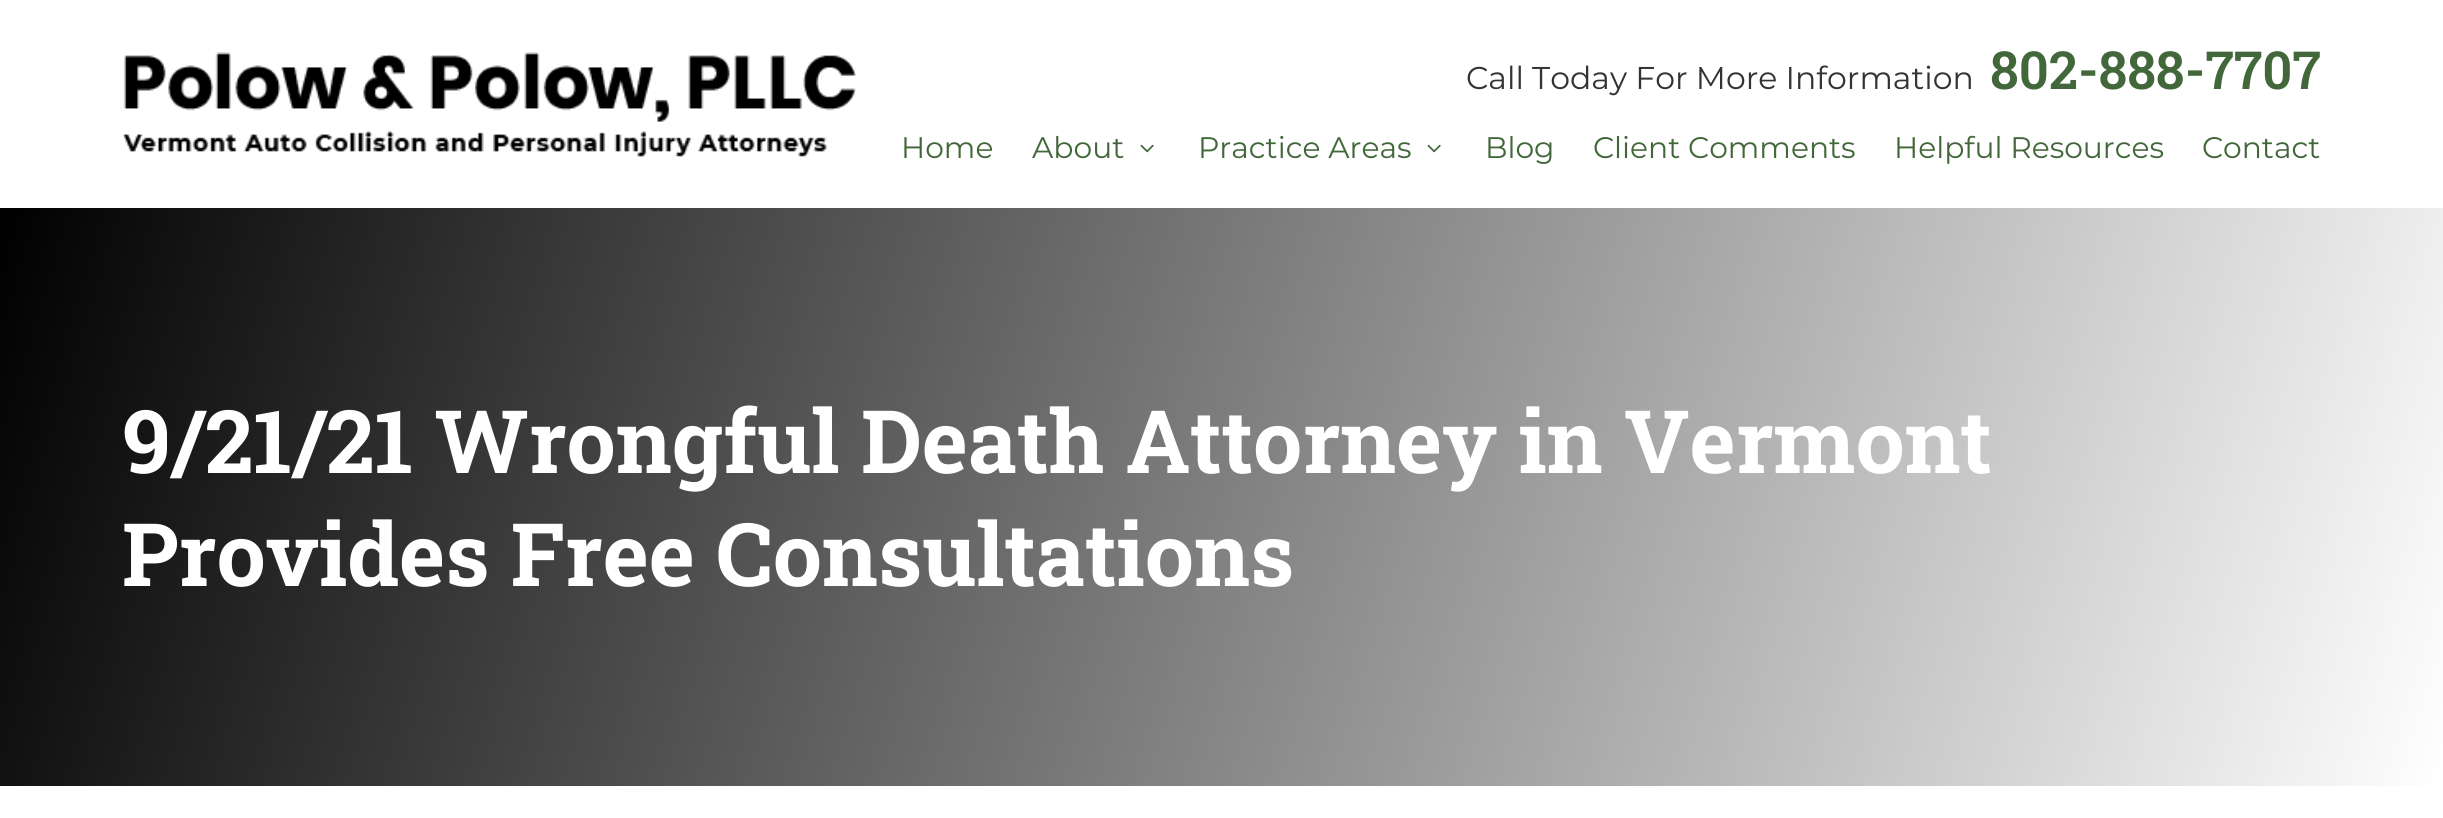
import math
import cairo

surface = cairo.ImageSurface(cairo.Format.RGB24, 2443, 818)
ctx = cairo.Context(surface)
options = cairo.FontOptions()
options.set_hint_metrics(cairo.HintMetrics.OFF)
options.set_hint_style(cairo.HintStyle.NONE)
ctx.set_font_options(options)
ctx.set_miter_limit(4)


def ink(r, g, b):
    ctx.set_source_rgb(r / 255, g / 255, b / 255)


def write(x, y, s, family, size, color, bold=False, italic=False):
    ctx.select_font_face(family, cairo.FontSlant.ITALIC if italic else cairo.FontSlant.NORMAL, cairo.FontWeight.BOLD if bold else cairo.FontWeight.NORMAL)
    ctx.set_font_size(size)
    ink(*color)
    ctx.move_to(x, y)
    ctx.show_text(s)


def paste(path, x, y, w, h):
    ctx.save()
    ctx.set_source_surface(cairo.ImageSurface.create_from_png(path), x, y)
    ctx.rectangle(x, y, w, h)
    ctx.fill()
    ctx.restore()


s1 = dict(family="Montserrat", size=31.5, color=(51, 51, 51))
s2 = dict(family="Roboto Slab SemiBold", size=52.5, color=(66, 103, 58))
s3 = dict(family="Montserrat", size=29.75, color=(66, 103, 58))
s4 = dict(family="Roboto Slab", size=87.5, color=(255, 255, 255), bold=True)

ink(255, 255, 255)
ctx.paint()
paste("pic1.png", 122, 52, 734, 105)
write(1466, 89, "Call Today For More Information", **s1)
write(1990, 89, "802-888-7707", **s2)
write(901, 158, "Home", **s3)
write(1032, 158, "About", **s3)
paste("pic2.png", 1140, 144, 14, 9)
write(1198, 158, "Practice Areas", **s3)
paste("pic2.png", 1427, 144, 14, 9)
write(1485, 158, "Blog", **s3)
write(1593, 158, "Client Comments", **s3)
write(1894, 158, "Helpful Resources", **s3)
write(2202, 158, "Contact", **s3)
gradient = cairo.LinearGradient(24, 131, 2419, 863)
gradient.add_color_stop_rgba(0, 0, 0, 0, 1)
gradient.add_color_stop_rgba(1, 1, 1, 1, 1)
ctx.set_source(gradient)
ctx.rectangle(0, 208, 2443, 578)
ctx.fill()
write(122, 473, "9/21/21 Wrongful Death Attorney in Vermont", **s4)
write(122, 586, "Provides Free Consultations", **s4)
surface.write_to_png("screenshot.png")
